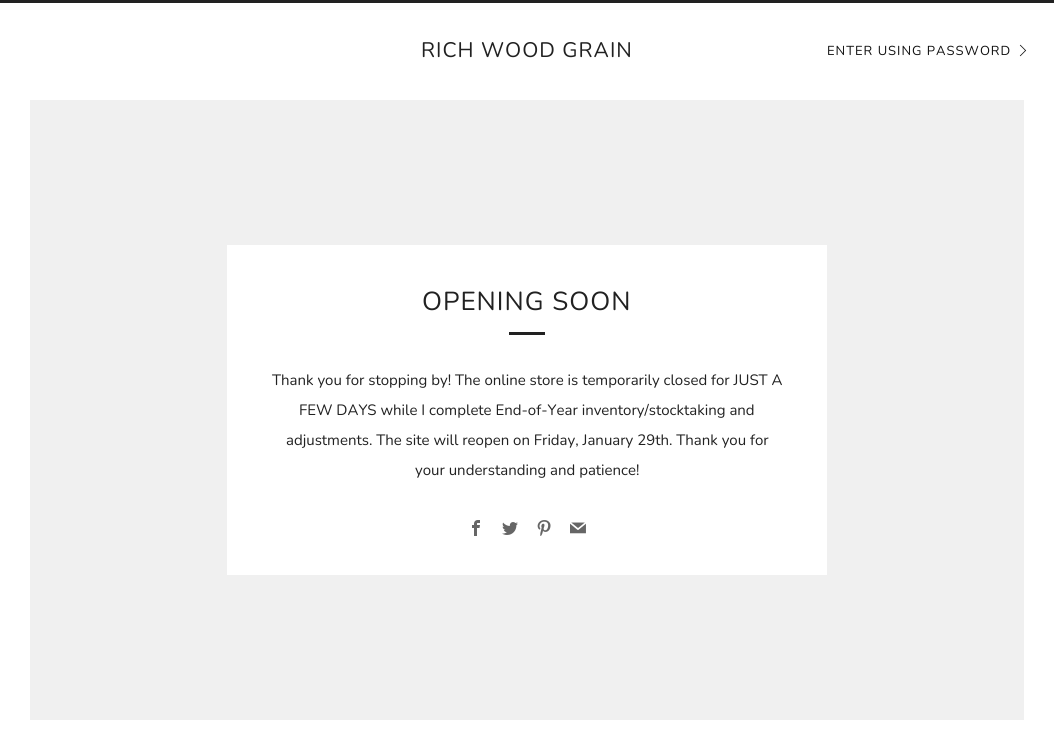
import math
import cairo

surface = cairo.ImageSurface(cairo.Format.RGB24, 1054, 729)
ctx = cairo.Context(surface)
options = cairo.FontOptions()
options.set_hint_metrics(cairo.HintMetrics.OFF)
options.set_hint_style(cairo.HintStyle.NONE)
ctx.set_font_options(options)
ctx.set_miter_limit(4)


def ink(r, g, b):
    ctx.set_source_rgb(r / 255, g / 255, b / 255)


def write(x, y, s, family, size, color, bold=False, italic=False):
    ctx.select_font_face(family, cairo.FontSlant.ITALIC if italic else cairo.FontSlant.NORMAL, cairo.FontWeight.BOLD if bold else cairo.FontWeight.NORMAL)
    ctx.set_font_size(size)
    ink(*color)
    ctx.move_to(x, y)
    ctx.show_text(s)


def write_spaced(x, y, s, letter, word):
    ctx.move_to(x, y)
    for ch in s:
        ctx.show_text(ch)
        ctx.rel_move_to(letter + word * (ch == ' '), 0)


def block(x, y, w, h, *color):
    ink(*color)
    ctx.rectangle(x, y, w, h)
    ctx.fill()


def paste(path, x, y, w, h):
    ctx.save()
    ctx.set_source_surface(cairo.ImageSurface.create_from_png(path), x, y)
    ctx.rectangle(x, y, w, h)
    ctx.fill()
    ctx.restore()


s1 = dict(family="Nunito", size=15, color=(33, 33, 33))

ink(255, 255, 255)
ctx.paint()
block(0, 0, 1054, 3, 33, 33, 33)
ctx.select_font_face("Nunito")
ctx.set_font_size(21)
write_spaced(421, 57, "RICH WOOD GRAIN", 1, 0)
ctx.set_font_size(13)
ink(17, 17, 17)
write_spaced(827, 55, "ENTER USING PASSWORD", 1, 0)
paste("pic1.png", 1019, 44, 8, 13)
block(30, 100, 994, 620, 240, 240, 240)
block(227, 245, 600, 330, 255, 255, 255)
ctx.set_font_size(26)
ink(33, 33, 33)
write_spaced(422, 310, "OPENING SOON", 1, 0)
block(509, 332, 36, 3, 33, 33, 33)
write(272, 385, "Thank you for stopping by! The online store is temporarily closed for JUST A", **s1)
write(299, 415, "FEW DAYS while I complete End-of-Year inventory/stocktaking and", **s1)
write(286, 445, "adjustments. The site will reopen on Friday, January 29th. Thank you for", **s1)
write(415, 475, "your understanding and patience!", **s1)
paste("pic2.png", 472, 520, 8, 16)
paste("pic3.png", 502, 522, 16, 13)
paste("pic4.png", 537, 520, 14, 16)
paste("pic5.png", 570, 522, 16, 12)
surface.write_to_png("screenshot.png")
